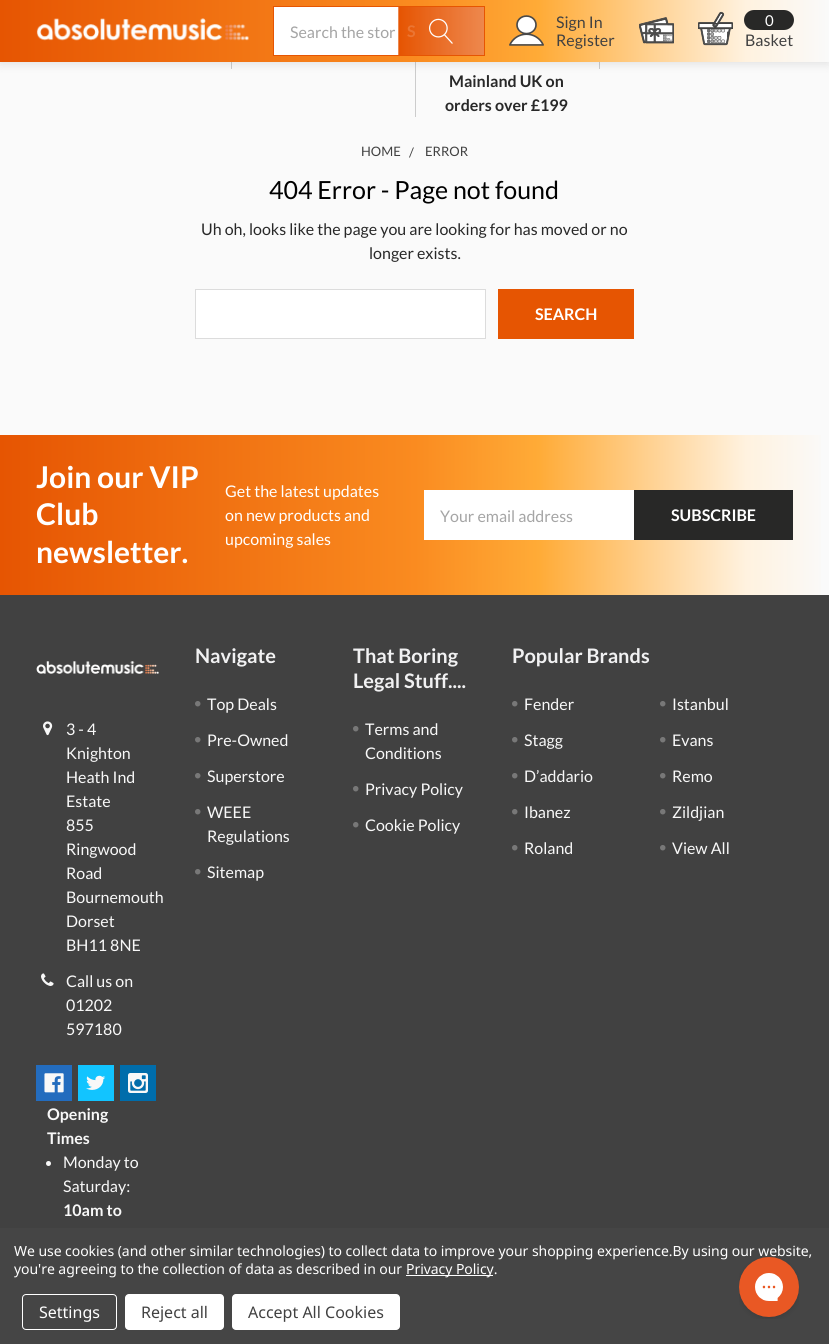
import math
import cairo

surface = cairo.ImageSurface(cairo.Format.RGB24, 829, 1344)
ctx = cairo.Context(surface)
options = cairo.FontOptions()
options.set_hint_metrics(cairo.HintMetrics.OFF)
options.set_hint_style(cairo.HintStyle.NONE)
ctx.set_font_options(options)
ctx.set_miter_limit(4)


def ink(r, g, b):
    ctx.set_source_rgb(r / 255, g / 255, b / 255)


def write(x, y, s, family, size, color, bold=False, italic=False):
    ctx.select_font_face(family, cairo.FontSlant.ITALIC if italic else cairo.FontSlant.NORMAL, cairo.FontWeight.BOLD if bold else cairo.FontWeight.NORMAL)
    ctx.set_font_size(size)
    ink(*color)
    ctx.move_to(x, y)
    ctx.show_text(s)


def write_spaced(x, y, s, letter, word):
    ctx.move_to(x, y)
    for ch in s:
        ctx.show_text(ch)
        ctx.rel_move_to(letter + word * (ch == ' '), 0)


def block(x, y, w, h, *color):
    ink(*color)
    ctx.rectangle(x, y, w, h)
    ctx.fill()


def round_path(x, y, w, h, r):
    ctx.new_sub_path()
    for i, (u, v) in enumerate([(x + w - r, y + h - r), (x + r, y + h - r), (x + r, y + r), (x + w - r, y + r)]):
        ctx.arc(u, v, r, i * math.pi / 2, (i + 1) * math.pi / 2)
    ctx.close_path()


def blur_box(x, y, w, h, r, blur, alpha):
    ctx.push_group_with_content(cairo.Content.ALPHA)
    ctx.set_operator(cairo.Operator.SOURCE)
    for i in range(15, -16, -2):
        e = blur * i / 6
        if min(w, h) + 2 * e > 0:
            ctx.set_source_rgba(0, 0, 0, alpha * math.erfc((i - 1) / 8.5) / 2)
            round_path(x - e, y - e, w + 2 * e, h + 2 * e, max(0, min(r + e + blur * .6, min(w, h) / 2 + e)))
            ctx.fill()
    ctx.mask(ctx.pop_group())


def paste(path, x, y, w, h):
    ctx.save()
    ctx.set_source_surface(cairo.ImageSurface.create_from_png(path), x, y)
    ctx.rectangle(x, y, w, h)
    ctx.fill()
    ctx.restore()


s1 = dict(family="Lato", size=16, color=(165, 165, 165))
s2 = dict(family="Lato", size=16, color=(235, 117, 50), bold=True)
s3 = dict(family="Lato", size=16, color=(65, 65, 65))
s4 = dict(family="Lato", size=15, color=(255, 255, 255))
s5 = dict(family="Lato", size=16, color=(40, 40, 40), bold=True)
s6 = dict(family="Lato", size=13, color=(65, 65, 65))
s7 = dict(family="Lato", size=25, color=(0, 0, 0))
s8 = dict(family="Lato", size=16, color=(40, 40, 40))
s9 = dict(family="Lato", size=16, color=(255, 255, 255), bold=True)
s10 = dict(family="Lato", size=30, color=(255, 255, 255), bold=True)
s11 = dict(family="Lato", size=16, color=(255, 255, 255))
s12 = dict(family="Lato", size=16, color=(248, 248, 248))
s13 = dict(family="Lato", size=16, color=(248, 248, 248), bold=True)
s14 = dict(family="Lato", size=20, color=(241, 241, 242), bold=True)
s15 = dict(family="Noto Sans", size=16, color=(255, 255, 255))
s16 = dict(family="Noto Sans", size=16, color=(65, 65, 65))

ink(250, 250, 250)
ctx.paint()
block(231, 62, 1, 7, 204, 204, 204)
block(599, 62, 1, 7, 204, 204, 204)
block(415, 62, 1, 55, 204, 204, 204)
ink(0, 0, 0)
blur_box(0, 2, 829, 62, 0, 5, 0.1)
gradient = cairo.LinearGradient(0, 31, 829, 31)
gradient.add_color_stop_rgba(0, 0.902, 0.333, 0.008, 1)
gradient.add_color_stop_rgba(0.5, 0.98, 0.545, 0.125, 1)
gradient.add_color_stop_rgba(0.65, 1, 0.671, 0.216, 1)
gradient.add_color_stop_rgba(0.9, 1, 0.949, 0.875, 1)
gradient.add_color_stop_rgba(1, 0.98, 0.98, 0.98, 1)
ctx.set_source(gradient)
ctx.rectangle(0, 0, 829, 62)
ctx.fill()
paste("pic1.png", 36, 18, 213, 23)
ink(255, 255, 255)
ctx.rectangle(273.5, 6.5, 211, 49)
ctx.fill_preserve()
ink(230, 85, 2)
ctx.set_line_width(1)
ctx.stroke()
write(290, 38, "Search the stor", **s1)
gradient = cairo.LinearGradient(399, 31, 484, 31)
gradient.add_color_stop_rgba(0, 0.902, 0.333, 0.008, 1)
gradient.add_color_stop_rgba(1, 0.902, 0.333, 0.008, 0.7)
ctx.set_source(gradient)
ctx.rectangle(399, 7, 85, 48)
ctx.fill()
write(407, 37, "S", **s2)
gradient = cairo.LinearGradient(314, 31, 399, 31)
gradient.add_color_stop_rgba(0, 0.902, 0.333, 0.008, 1)
gradient.add_color_stop_rgba(1, 0.902, 0.333, 0.008, 0.7)
ctx.set_source(gradient)
ctx.rectangle(398, 6, 1, 50)
ctx.fill()
paste("pic2.png", 429, 18, 24, 26)
paste("pic3.png", 509, 15, 35, 31)
write(556, 28, "Sign In", **s3)
write(556, 46, "Register", **s3)
paste("pic4.png", 639, 17, 35, 27)
paste("pic5.png", 698, 11, 35, 35)
ink(40, 40, 39)
round_path(744, 10, 50, 20, 10)
ctx.fill()
write(765, 26, "0", **s4)
write(745, 46, "Basket", **s3)
write(449, 87, "Mainland UK on", **s5)
write(445, 111, "orders over £199", **s5)
write(361, 156, "HOME", **s6)
write(409, 157, "/", **s6)
write(425, 156, "ERROR", **s6)
write(269, 199, "404 Error - Page not found", **s7)
write(201, 235, "Uh oh, looks like the page you are looking for has moved or no", **s8)
write(369, 259, "longer exists.", **s8)
ink(255, 255, 255)
ctx.rectangle(195.5, 289.5, 290, 49)
ctx.fill_preserve()
ink(220, 220, 220)
ctx.stroke()
block(498, 289, 136, 50, 230, 85, 2)
write(535, 320, "SEARCH", **s9)
block(0, 595, 829, 633, 65, 65, 65)
gradient = cairo.LinearGradient(0, 515, 829, 515)
gradient.add_color_stop_rgba(0, 0.902, 0.333, 0.008, 1)
gradient.add_color_stop_rgba(0.5, 0.98, 0.545, 0.125, 1)
gradient.add_color_stop_rgba(0.65, 1, 0.671, 0.216, 1)
gradient.add_color_stop_rgba(0.9, 1, 0.949, 0.875, 1)
gradient.add_color_stop_rgba(1, 0.98, 0.98, 0.98, 1)
ctx.set_source(gradient)
ctx.rectangle(0, 435, 821, 160)
ctx.fill()
write(36, 488, "Join our VIP", **s10)
write(36, 525, "Club", **s10)
write(36, 563, "newsletter.", **s10)
write(225, 497, "Get the latest updates", **s11)
write(225, 521, "on new products and", **s11)
write(225, 545, "upcoming sales", **s11)
block(424, 490, 210, 50, 255, 255, 255)
write(440, 522, "Your email address", **s1)
block(634, 490, 159, 50, 40, 40, 39)
write(671, 521, "SUBSCRIBE", **s9)
paste("pic6.png", 36, 661, 123, 13)
paste("pic7.png", 43, 721, 10, 15)
write(66, 735, "3 - 4", **s12)
write(66, 759, "Knighton", **s12)
write(66, 783, "Heath Ind", **s12)
write(66, 807, "Estate", **s12)
write(66, 831, "855", **s12)
write(66, 855, "Ringwood", **s12)
write(66, 879, "Road", **s12)
write(66, 903, "Bournemouth", **s12)
write(66, 927, "Dorset", **s12)
write(66, 951, "BH11 8NE", **s12)
paste("pic8.png", 41, 973, 13, 13)
write(66, 987, "Call us on", **s12)
write(66, 1011, "01202", **s12)
write(66, 1035, "597180", **s12)
block(36, 1065, 36, 36, 35, 108, 190)
paste("pic9.png", 44, 1073, 20, 20)
block(78, 1065, 36, 36, 18, 196, 255)
paste("pic10.png", 86, 1075, 20, 15)
block(120, 1065, 36, 36, 0, 109, 171)
paste("pic11.png", 128, 1073, 20, 20)
write(47, 1120, "Opening", **s13)
write(47, 1144, "Times", **s13)
ctx.new_path()
ctx.arc(48.5, 1163.5, 2.5, 0, 2 * math.pi)
ctx.fill()
write(63, 1168, "Monday to", **s12)
write(63, 1192, "Saturday:", **s12)
write(63, 1216, "10am to", **s13)
write(195, 663, "Navigate", **s14)
paste("pic12.png", 195, 701, 6, 6)
write(207, 710, "Top Deals", **s12)
paste("pic12.png", 195, 737, 6, 6)
write(207, 746, "Pre-Owned", **s12)
paste("pic12.png", 195, 773, 6, 6)
write(207, 782, "Superstore", **s12)
paste("pic12.png", 195, 809, 6, 6)
write(207, 818, "WEEE", **s12)
write(207, 842, "Regulations", **s12)
paste("pic12.png", 195, 869, 6, 6)
write(207, 878, "Sitemap", **s12)
write(353, 663, "That Boring", **s14)
write(353, 688, "Legal Stuff....", **s14)
paste("pic12.png", 353, 726, 6, 6)
write(365, 735, "Terms and", **s12)
write(365, 759, "Conditions", **s12)
paste("pic12.png", 353, 786, 6, 6)
write(365, 795, "Privacy Policy", **s12)
paste("pic12.png", 353, 822, 6, 6)
write(365, 831, "Cookie Policy", **s12)
write(512, 663, "Popular Brands", **s14)
paste("pic12.png", 512, 701, 6, 6)
write(524, 710, "Fender", **s12)
paste("pic12.png", 660, 701, 6, 6)
write(672, 710, "Istanbul", **s12)
paste("pic12.png", 512, 737, 6, 6)
write(524, 746, "Stagg", **s12)
paste("pic12.png", 660, 737, 6, 6)
write(672, 746, "Evans", **s12)
paste("pic12.png", 512, 773, 6, 6)
write(524, 782, "D’addario", **s12)
paste("pic12.png", 660, 773, 6, 6)
write(672, 782, "Remo", **s12)
paste("pic12.png", 512, 809, 6, 6)
write(524, 818, "Ibanez", **s12)
paste("pic12.png", 660, 809, 6, 6)
write(672, 818, "Zildjian", **s12)
paste("pic12.png", 512, 845, 6, 6)
write(524, 854, "Roland", **s12)
paste("pic12.png", 660, 845, 6, 6)
write(672, 854, "View All", **s12)
block(0, 1228, 829, 116, 69, 69, 69)
ctx.select_font_face("Noto Sans")
ctx.set_font_size(14)
ink(255, 255, 255)
write_spaced(14, 1256, "We use cookies (and other similar technologies) to collect data to improve your shopping experience.By using our website,", -0.05, 0)
write_spaced(14, 1274, "you're agreeing to the collection of data as described in our", -0.05, 0)
block(406, 1275, 87, 1, 255, 255, 255)
write_spaced(406, 1274, "Privacy Policy.", -0.05, 0)
round_path(22.5, 1294.5, 94, 35, 3.5)
ctx.stroke()
write(39, 1318, "Settings", **s15)
round_path(125, 1294, 99, 36, 4)
ctx.fill()
write(141, 1318, "Reject all", **s16)
ink(255, 255, 255)
round_path(232, 1294, 168, 36, 4)
ctx.fill()
write(248, 1318, "Accept All Cookies", **s16)
paste("pic13.png", 739, 1257, 60, 62)
surface.write_to_png("screenshot.png")
